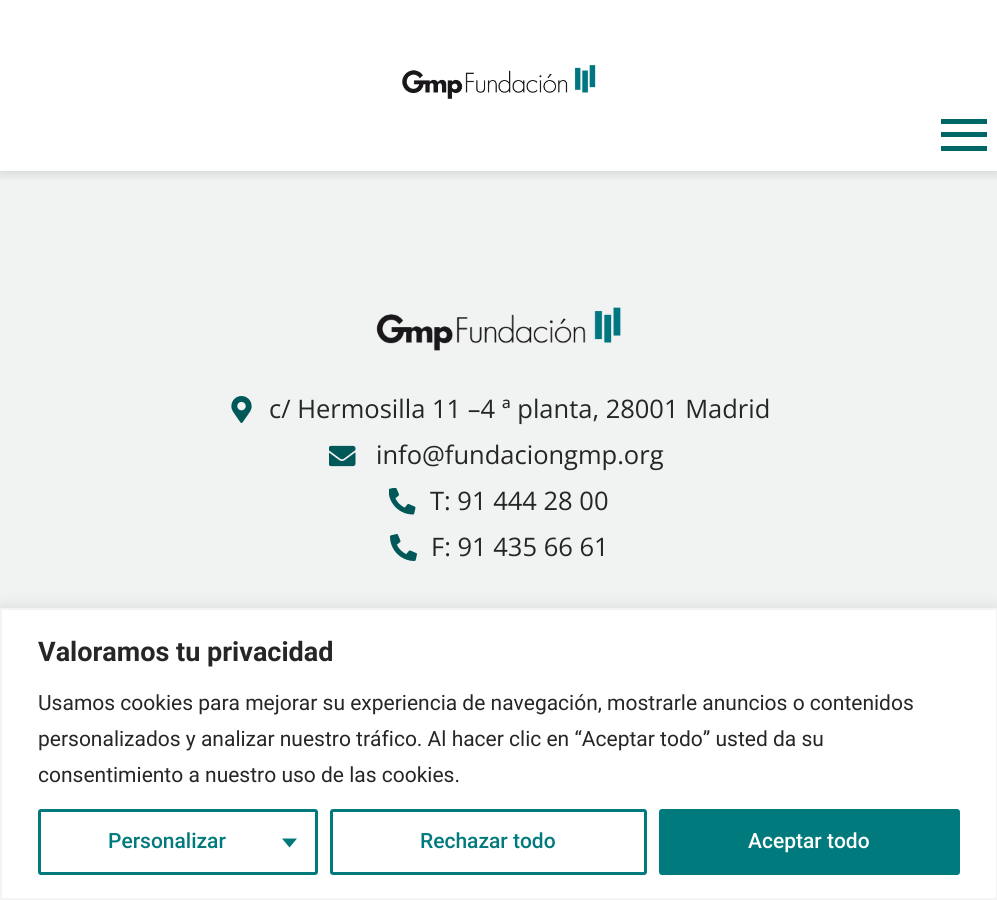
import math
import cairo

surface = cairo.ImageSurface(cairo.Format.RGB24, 997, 900)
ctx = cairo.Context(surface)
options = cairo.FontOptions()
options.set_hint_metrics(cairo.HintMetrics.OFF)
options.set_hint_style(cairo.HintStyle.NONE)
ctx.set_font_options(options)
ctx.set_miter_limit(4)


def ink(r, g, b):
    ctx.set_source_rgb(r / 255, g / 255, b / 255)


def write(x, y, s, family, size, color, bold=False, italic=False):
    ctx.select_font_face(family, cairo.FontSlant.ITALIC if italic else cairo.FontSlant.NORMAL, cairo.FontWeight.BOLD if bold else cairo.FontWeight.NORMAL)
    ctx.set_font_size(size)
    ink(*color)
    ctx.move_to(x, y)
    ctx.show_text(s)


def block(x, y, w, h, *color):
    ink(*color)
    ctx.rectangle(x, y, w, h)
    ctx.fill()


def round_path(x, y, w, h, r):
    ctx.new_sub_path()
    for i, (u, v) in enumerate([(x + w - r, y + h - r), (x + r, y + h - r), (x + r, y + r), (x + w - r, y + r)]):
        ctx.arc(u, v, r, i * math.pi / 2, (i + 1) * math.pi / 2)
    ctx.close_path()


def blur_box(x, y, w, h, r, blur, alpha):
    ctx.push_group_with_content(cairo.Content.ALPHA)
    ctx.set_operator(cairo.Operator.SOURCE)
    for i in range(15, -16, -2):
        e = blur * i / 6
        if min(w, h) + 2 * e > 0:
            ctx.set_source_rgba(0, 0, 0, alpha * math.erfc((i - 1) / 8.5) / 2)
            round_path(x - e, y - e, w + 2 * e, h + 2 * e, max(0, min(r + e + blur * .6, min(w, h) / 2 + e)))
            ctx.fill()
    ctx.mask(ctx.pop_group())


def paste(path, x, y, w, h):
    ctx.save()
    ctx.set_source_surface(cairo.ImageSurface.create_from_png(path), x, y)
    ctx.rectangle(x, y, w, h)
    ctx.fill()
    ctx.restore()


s1 = dict(family="Open Sans", size=25.5, color=(38, 38, 38))
s2 = dict(family="Roboto", size=27, color=(38, 38, 38), bold=True)
s3 = dict(family="Roboto", size=21, color=(38, 38, 38))
s4 = dict(family="Roboto Medium", size=21, color=(0, 122, 124))
s5 = dict(family="Roboto Medium", size=21, color=(255, 255, 255))

ink(255, 255, 255)
ctx.paint()
block(0, 171, 997, 437, 241, 243, 243)
ctx.save()
ctx.rectangle(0, 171, 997, 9)
ctx.clip()
ink(0, 0, 0)
blur_box(0, 0, 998, 171, 0, 7.5, 0.17)
ctx.restore()
paste("pic1.png", 402, 65, 194, 34)
block(941, 119, 46, 5, 0, 103, 102)
block(941, 132, 46, 5, 0, 103, 102)
block(941, 146, 46, 5, 0, 103, 102)
paste("pic2.png", 376, 307, 245, 44)
paste("pic3.png", 231, 396, 21, 27)
write(269, 418, "c/ Hermosilla 11 –4 ª planta, 28001 Madrid", **s1)
paste("pic4.png", 329, 445, 27, 22)
write(376, 464, "info@fundaciongmp.org", **s1)
paste("pic5.png", 389, 488, 27, 27)
write(430, 510, "T: 91 444 28 00", **s1)
paste("pic6.png", 390, 534, 27, 27)
write(431, 556, "F: 91 435 66 61", **s1)
ink(172, 171, 171)
blur_box(0, 606, 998, 293, 0, 7.5, 0.3)
ink(255, 255, 255)
ctx.rectangle(1, 609, 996, 290)
ctx.fill_preserve()
ink(244, 244, 244)
ctx.stroke()
write(38, 661, "Valoramos tu privacidad", **s2)
write(38, 710, "Usamos cookies para mejorar su experiencia de navegación, mostrarle anuncios o contenidos", **s3)
write(38, 746, "personalizados y analizar nuestro tráfico. Al hacer clic en “Aceptar todo” usted da su", **s3)
write(38, 782, "consentimiento a nuestro uso de las cookies.", **s3)
round_path(39.5, 810.5, 277, 63, 1.5)
ink(0, 122, 124)
ctx.set_line_width(3)
ctx.stroke()
write(108, 848, "Personalizar", **s4)
ctx.new_path()
ctx.move_to(282, 838.5)
ctx.line_to(297, 838.5)
ctx.line_to(289.5, 847.5)
ctx.close_path()
ctx.fill()
round_path(331.5, 810.5, 314, 63, 1.5)
ctx.stroke()
write(420, 848, "Rechazar todo", **s4)
round_path(660.5, 810.5, 298, 63, 1.5)
ctx.fill_preserve()
ctx.stroke()
write(748, 848, "Aceptar todo", **s5)
surface.write_to_png("screenshot.png")
